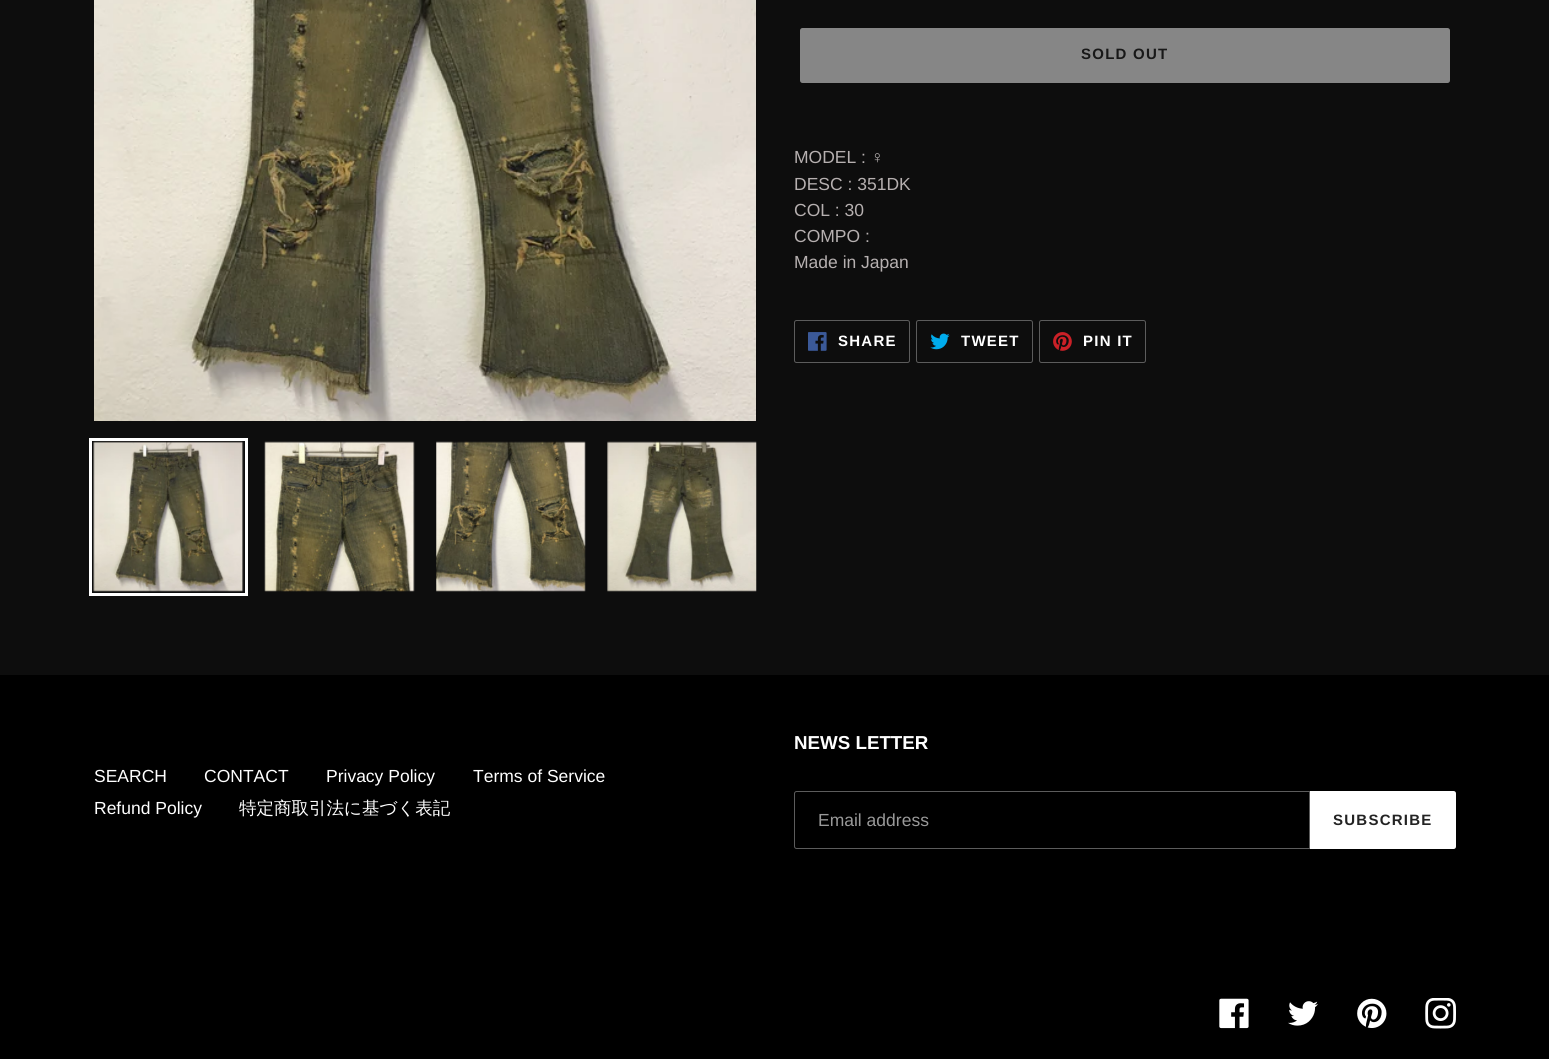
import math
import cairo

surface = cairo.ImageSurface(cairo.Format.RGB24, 1549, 1059)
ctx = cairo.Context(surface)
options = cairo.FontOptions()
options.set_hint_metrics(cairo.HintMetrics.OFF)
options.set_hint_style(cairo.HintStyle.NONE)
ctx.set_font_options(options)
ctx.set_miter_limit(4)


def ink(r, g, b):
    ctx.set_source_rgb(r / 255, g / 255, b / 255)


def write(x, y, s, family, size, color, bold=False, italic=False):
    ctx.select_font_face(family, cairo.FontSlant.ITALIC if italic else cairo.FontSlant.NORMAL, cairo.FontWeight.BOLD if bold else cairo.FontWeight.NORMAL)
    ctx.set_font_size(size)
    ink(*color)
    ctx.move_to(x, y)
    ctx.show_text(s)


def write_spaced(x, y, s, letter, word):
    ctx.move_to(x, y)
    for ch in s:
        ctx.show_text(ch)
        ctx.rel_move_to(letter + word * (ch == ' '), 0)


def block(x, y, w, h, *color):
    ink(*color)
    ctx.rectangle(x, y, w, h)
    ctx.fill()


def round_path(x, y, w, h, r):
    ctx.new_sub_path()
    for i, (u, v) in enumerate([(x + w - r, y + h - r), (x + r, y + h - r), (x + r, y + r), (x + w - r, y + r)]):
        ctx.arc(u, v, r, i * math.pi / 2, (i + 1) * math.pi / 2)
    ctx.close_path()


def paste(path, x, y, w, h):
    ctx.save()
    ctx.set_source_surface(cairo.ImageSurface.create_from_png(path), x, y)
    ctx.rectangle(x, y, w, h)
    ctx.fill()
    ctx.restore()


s1 = dict(family="Liberation Sans", size=17.5, color=(182, 176, 176))
s2 = dict(family="Liberation Sans", size=17.5, color=(255, 255, 255))
s3 = dict(family="WenQuanYi Zen Hei Medium", size=17.5, color=(255, 255, 255))
s4 = dict(family="Liberation Sans", size=18.75, color=(255, 255, 255), bold=True)
s5 = dict(family="Liberation Sans", size=17.5, color=(153, 153, 153))

ink(13, 13, 13)
ctx.paint()
paste("pic1.png", 94, 0, 662, 421)
ctx.rectangle(90.5, 439.5, 156, 155)
ink(255, 255, 255)
ctx.set_line_width(3)
ctx.stroke()
paste("pic2.png", 93, 441, 151, 151)
paste("pic3.png", 264, 441, 151, 151)
paste("pic4.png", 436, 441, 150, 151)
paste("pic5.png", 607, 441, 150, 151)
ink(134, 134, 134)
round_path(800, 28, 650, 55, 2.5)
ctx.fill()
ctx.select_font_face("Liberation Sans", cairo.FontSlant.NORMAL, cairo.FontWeight.BOLD)
ctx.set_font_size(15)
ink(24, 24, 24)
write_spaced(1081, 59, "SOLD OUT", 1.25, 0)
write(794, 163, "MODEL : ♀", **s1)
write(794, 190, "DESC : 351DK", **s1)
write(794, 216, "COL : 30", **s1)
write(794, 242, "COMPO :", **s1)
write(794, 268, "Made in Japan", **s1)
round_path(794.5, 320.5, 115, 42, 2)
ink(92, 92, 92)
ctx.set_line_width(1)
ctx.stroke()
paste("pic6.png", 808, 332, 19, 19)
ctx.select_font_face("Liberation Sans", cairo.FontSlant.NORMAL, cairo.FontWeight.BOLD)
ctx.set_font_size(15)
ink(255, 255, 255)
write_spaced(838, 346, "SHARE", 1.25, 0)
round_path(916.5, 320.5, 116, 42, 2)
ink(92, 92, 92)
ctx.stroke()
paste("pic7.png", 930, 333, 20, 17)
ink(255, 255, 255)
write_spaced(961, 346, "TWEET", 1.25, 0)
round_path(1039.5, 320.5, 106, 42, 2)
ink(92, 92, 92)
ctx.stroke()
paste("pic8.png", 1053, 332, 19, 19)
ink(255, 255, 255)
write_spaced(1083, 346, "PIN IT", 1.25, 0)
block(0, 675, 1549, 384, 0, 0, 0)
write(94, 782, "SEARCH", **s2)
write(204, 782, "CONTACT", **s2)
write(326, 782, "Privacy Policy", **s2)
write(473, 782, "Terms of Service", **s2)
write(94, 814, "Refund Policy", **s2)
write(239, 814, "特定商取引法に基づく表記", **s3)
write(794, 749, "NEWS LETTER", **s4)
ctx.new_path()
ctx.move_to(796.5, 791.5)
ctx.line_to(1309.5, 791.5)
ctx.line_to(1309.5, 848.5)
ctx.line_to(796.5, 848.5)
ctx.curve_to(795.5, 848.5, 794.5, 847.5, 794.5, 846.5)
ctx.line_to(794.5, 793.5)
ctx.curve_to(794.5, 792.5, 795.5, 791.5, 796.5, 791.5)
ctx.close_path()
ink(92, 92, 92)
ctx.stroke()
write(818, 826, "Email address", **s5)
ink(255, 255, 255)
ctx.new_path()
ctx.move_to(1310, 791)
ctx.line_to(1453.5, 791)
ctx.curve_to(1455, 791, 1456, 792, 1456, 793.5)
ctx.line_to(1456, 846.5)
ctx.curve_to(1456, 848, 1455, 849, 1453.5, 849)
ctx.line_to(1310, 849)
ctx.close_path()
ctx.fill()
ctx.select_font_face("Liberation Sans", cairo.FontSlant.NORMAL, cairo.FontWeight.BOLD)
ctx.set_font_size(15)
ink(35, 35, 35)
write_spaced(1333, 825, "SUBSCRIBE", 1.25, 0)
paste("pic9.png", 1219, 998, 30, 31)
paste("pic10.png", 1288, 1001, 30, 25)
paste("pic11.png", 1357, 998, 30, 30)
paste("pic12.png", 1425, 998, 31, 31)
surface.write_to_png("screenshot.png")
